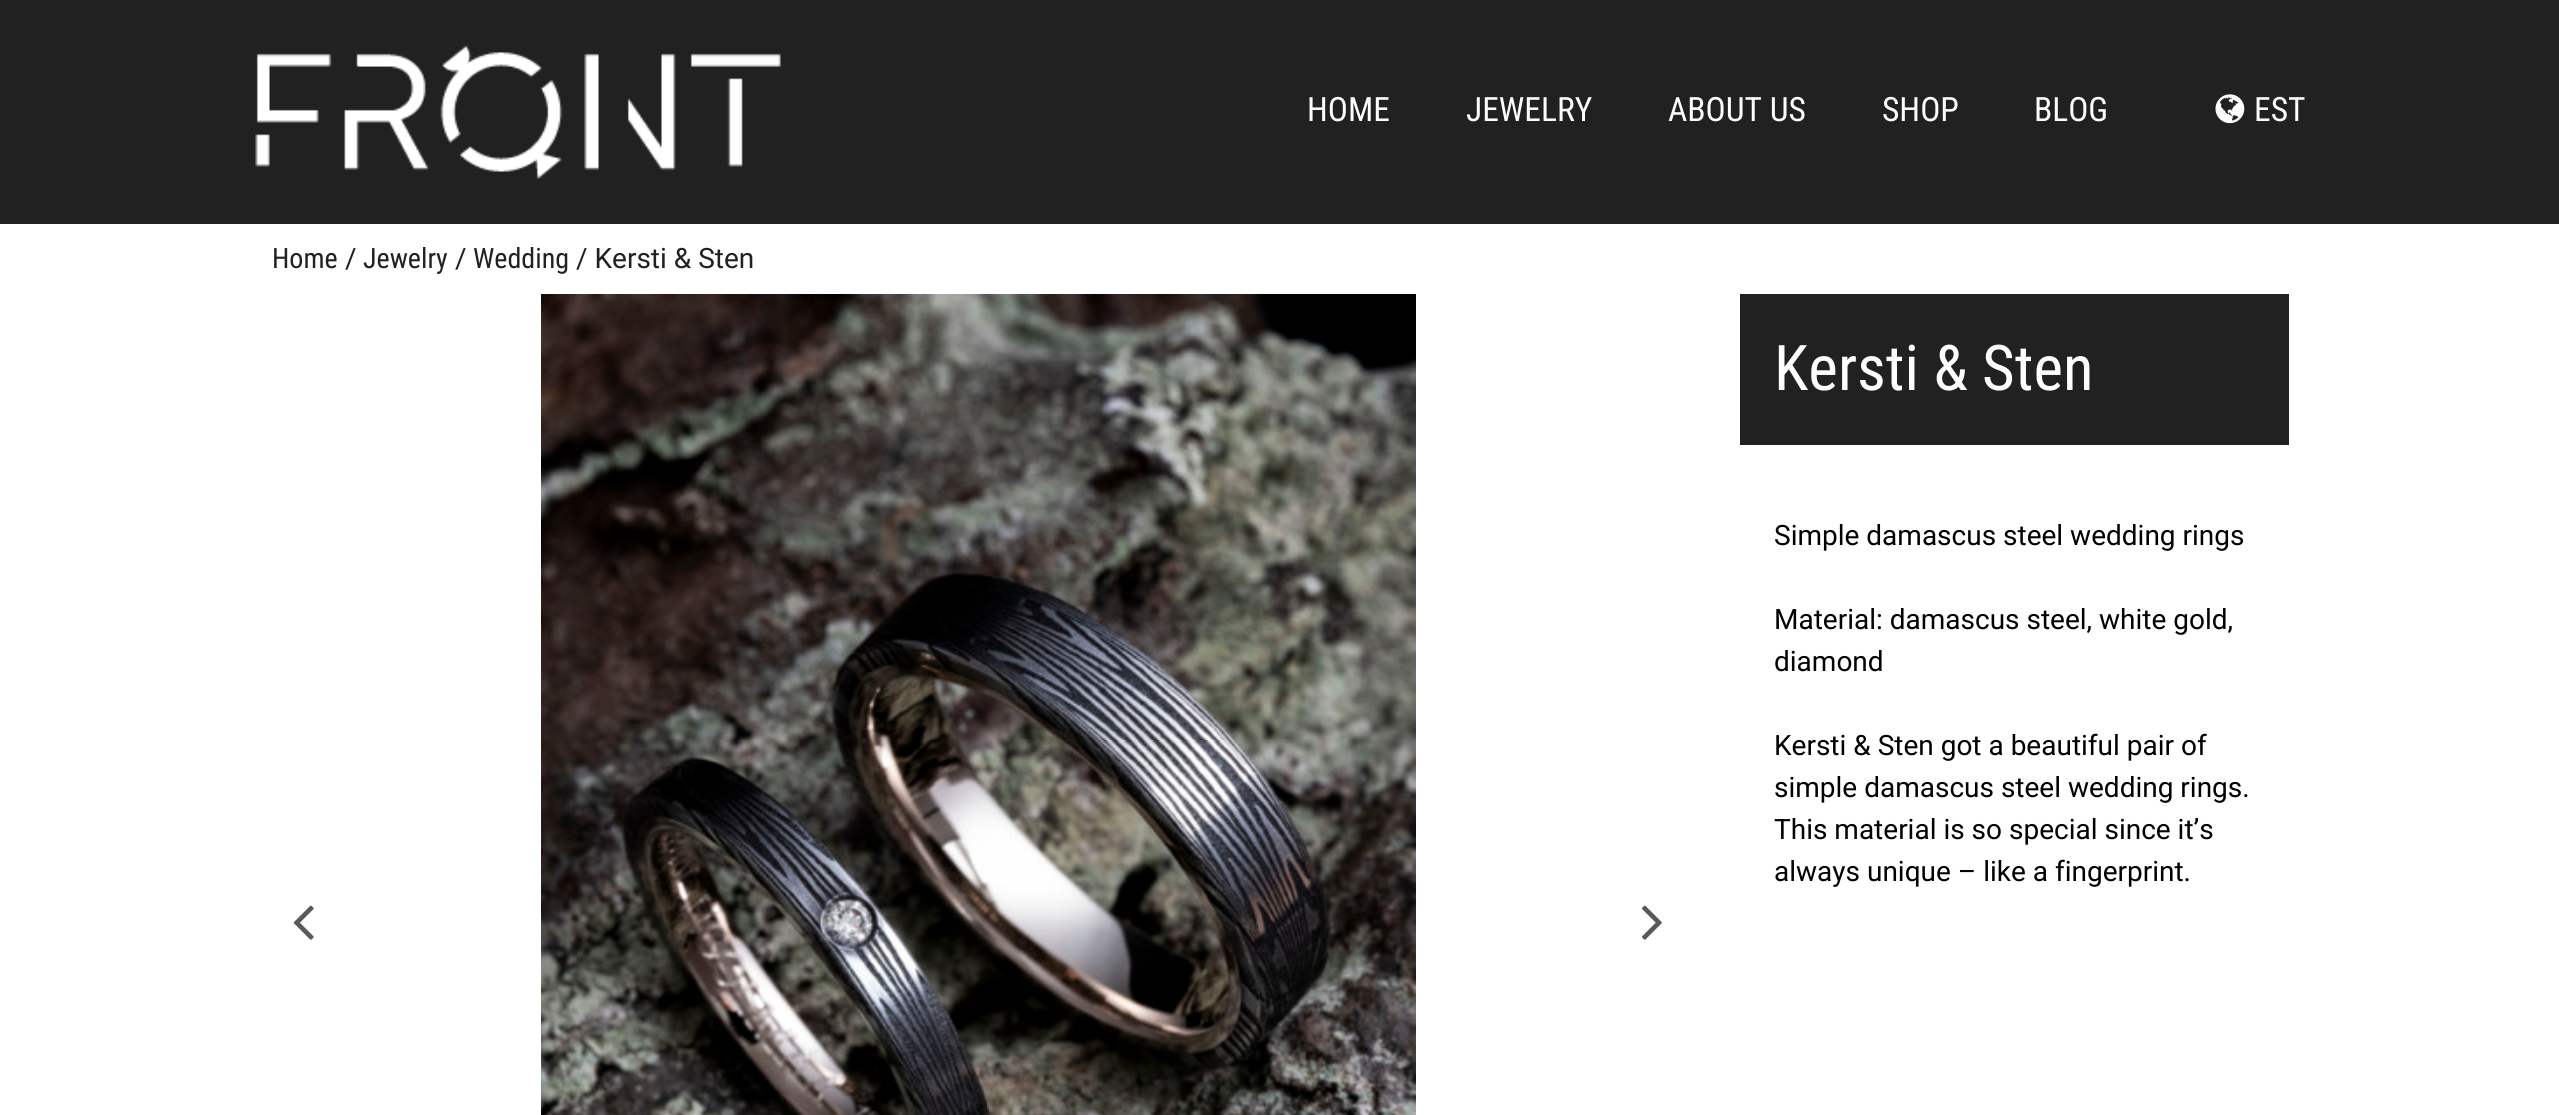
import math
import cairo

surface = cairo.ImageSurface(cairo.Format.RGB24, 2559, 1115)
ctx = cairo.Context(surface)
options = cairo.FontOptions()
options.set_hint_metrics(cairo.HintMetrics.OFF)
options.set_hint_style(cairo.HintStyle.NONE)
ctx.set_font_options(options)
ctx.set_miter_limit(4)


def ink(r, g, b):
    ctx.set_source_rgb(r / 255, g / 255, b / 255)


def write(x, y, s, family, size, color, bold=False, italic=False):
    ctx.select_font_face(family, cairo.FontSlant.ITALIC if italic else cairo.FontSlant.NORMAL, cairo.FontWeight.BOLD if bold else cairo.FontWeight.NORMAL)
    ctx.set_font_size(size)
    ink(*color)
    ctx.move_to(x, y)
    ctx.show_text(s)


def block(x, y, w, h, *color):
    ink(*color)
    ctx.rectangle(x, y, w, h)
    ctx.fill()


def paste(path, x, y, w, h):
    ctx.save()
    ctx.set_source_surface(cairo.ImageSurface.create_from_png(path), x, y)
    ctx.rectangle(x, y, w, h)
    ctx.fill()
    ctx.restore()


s1 = dict(family="Roboto Condensed", size=33.5, color=(254, 254, 254))
s2 = dict(family="Roboto Condensed", size=28, color=(33, 33, 33))
s3 = dict(family="Roboto", size=28, color=(33, 33, 33))
s4 = dict(family="Roboto Condensed", size=63, color=(254, 254, 254))
s5 = dict(family="Roboto", size=28, color=(0, 0, 0))

ink(255, 255, 255)
ctx.paint()
block(0, 0, 2559, 224, 33, 33, 33)
paste("pic1.png", 255, 45, 526, 134)
write(1307, 121, "HOME", **s1)
write(1466, 121, "JEWELRY", **s1)
write(1668, 121, "ABOUT US", **s1)
write(1882, 121, "SHOP", **s1)
write(2034, 121, "BLOG", **s1)
paste("pic2.png", 2215, 94, 30, 30)
write(2254, 121, "EST", **s1)
write(272, 268, "Home", **s2)
write(345, 268, "/", **s3)
write(363, 268, "Jewelry", **s2)
write(455, 268, "/", **s3)
write(473, 268, "Wedding", **s2)
write(576, 268, "/ Kersti & Sten", **s3)
paste("pic3.png", 293, 905, 21, 35)
paste("pic4.png", 541, 294, 875, 821)
paste("pic5.png", 1642, 905, 20, 35)
block(1740, 294, 549, 151, 33, 33, 33)
write(1774, 390, "Kersti & Sten", **s4)
write(1774, 545, "Simple damascus steel wedding rings", **s5)
write(1774, 629, "Material: damascus steel, white gold,", **s5)
write(1774, 671, "diamond", **s5)
write(1774, 755, "Kersti & Sten got a beautiful pair of", **s5)
write(1774, 797, "simple damascus steel wedding rings.", **s5)
write(1774, 839, "This material is so special since it’s", **s5)
write(1774, 881, "always unique – like a fingerprint.", **s5)
surface.write_to_png("screenshot.png")
